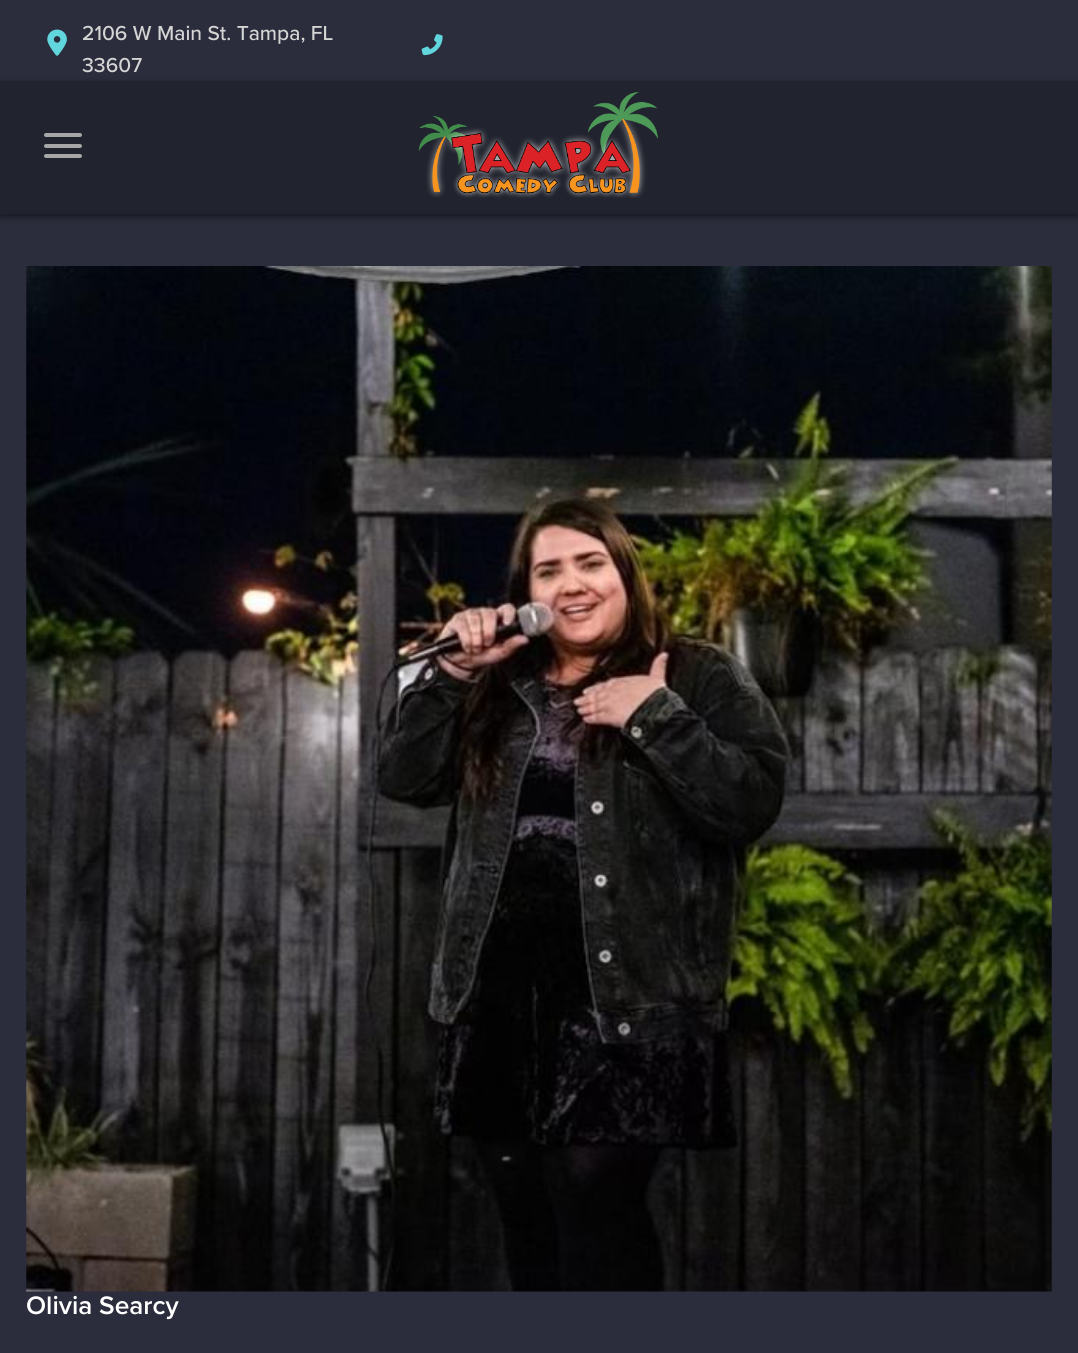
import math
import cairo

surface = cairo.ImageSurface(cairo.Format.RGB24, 1078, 1353)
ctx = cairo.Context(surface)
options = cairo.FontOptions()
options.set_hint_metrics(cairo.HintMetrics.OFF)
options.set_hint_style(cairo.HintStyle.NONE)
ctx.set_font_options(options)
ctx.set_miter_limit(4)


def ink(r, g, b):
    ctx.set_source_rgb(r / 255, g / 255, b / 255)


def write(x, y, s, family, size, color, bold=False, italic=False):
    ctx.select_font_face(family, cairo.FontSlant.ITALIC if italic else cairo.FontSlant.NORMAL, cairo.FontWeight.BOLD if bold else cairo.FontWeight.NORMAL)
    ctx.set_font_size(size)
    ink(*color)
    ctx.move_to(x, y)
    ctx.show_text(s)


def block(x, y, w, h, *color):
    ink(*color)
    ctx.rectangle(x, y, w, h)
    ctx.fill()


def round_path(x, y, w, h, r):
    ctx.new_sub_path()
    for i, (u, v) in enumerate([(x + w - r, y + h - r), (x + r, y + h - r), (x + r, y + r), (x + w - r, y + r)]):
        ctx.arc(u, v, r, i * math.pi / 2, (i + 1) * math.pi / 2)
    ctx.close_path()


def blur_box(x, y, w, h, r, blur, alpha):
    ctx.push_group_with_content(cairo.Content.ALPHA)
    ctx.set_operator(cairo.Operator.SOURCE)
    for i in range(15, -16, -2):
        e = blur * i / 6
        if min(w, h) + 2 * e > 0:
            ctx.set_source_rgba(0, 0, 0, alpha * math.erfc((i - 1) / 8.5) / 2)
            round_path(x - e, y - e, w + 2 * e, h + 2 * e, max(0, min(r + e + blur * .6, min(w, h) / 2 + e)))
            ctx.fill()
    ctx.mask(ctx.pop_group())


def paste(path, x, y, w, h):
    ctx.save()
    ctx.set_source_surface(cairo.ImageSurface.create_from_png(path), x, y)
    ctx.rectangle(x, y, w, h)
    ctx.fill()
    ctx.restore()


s1 = dict(family="Proxima Nova Medium", size=21, color=(213, 213, 213))
s2 = dict(family="Proxima Nova SemiBold", size=26.25, color=(255, 255, 255))

ink(43, 45, 60)
ctx.paint()
paste("pic1.png", 47, 29, 20, 27)
write(82, 40, "2106 W Main St. Tampa, FL", **s1)
write(82, 72, "33607", **s1)
paste("pic2.png", 421, 34, 22, 22)
ink(0, 0, 0)
blur_box(0, 84, 1078, 133, 0, 3.5, 0.5)
block(0, 81, 1078, 133, 33, 35, 46)
ink(167, 167, 167)
round_path(44, 133, 38, 4, 2)
ctx.fill()
round_path(44, 144, 38, 4, 2)
ctx.fill()
round_path(44, 154, 38, 4, 2)
ctx.fill()
paste("pic3.png", 418, 92, 240, 106)
paste("pic4.png", 26, 266, 1026, 1026)
write(26, 1314, "Olivia Searcy", **s2)
surface.write_to_png("screenshot.png")
